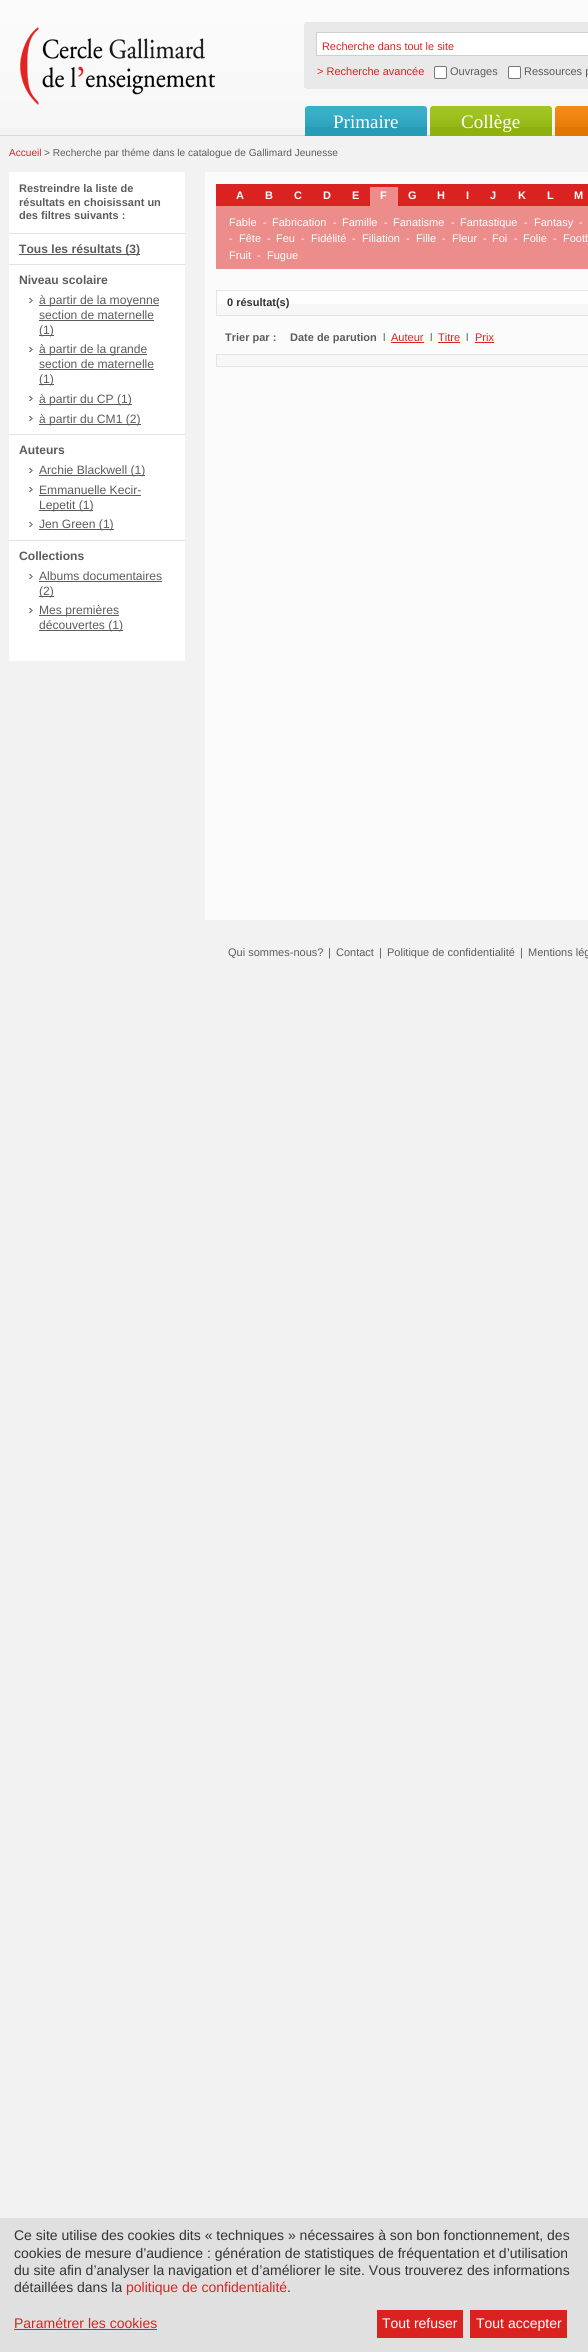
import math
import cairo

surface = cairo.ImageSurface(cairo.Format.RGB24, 588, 2352)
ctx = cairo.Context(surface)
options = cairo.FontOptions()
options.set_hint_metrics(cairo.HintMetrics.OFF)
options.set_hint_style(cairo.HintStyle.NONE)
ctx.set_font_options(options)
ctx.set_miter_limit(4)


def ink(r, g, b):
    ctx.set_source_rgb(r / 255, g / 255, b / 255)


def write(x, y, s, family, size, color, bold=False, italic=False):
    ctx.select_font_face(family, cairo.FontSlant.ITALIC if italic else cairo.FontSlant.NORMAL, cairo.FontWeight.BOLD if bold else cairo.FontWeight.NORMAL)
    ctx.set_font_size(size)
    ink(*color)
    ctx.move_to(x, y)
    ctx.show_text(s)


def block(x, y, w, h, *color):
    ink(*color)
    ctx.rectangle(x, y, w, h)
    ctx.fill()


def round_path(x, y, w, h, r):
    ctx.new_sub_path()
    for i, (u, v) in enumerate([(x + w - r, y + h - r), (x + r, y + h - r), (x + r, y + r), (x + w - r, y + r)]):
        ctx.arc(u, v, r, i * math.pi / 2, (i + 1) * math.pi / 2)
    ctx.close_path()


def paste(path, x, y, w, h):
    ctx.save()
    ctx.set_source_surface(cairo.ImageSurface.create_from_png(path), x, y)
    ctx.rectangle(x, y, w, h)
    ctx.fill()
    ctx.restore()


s1 = dict(family="Liberation Sans", size=10.9, color=(218, 35, 33))
s2 = dict(family="Liberation Sans", size=11, color=(218, 35, 33))
s3 = dict(family="Liberation Sans", size=11, color=(92, 92, 92))
s4 = dict(family="Liberation Serif", size=19, color=(255, 255, 255))
s5 = dict(family="Liberation Sans", size=10.1, color=(218, 35, 33))
s6 = dict(family="Liberation Sans", size=10.1, color=(92, 92, 92))
s7 = dict(family="Liberation Sans", size=11, color=(92, 92, 92), bold=True)
s8 = dict(family="Liberation Sans", size=12.1, color=(92, 92, 92), bold=True)
s9 = dict(family="Liberation Sans", size=12.1, color=(92, 92, 92))
s10 = dict(family="Liberation Sans", size=11, color=(255, 255, 255), bold=True)
s11 = dict(family="Liberation Sans", size=11, color=(255, 255, 255))
s12 = dict(family="Liberation Sans", size=11, color=(51, 51, 51), bold=True)
s13 = dict(family="Liberation Sans", size=14, color=(51, 51, 51))
s14 = dict(family="Liberation Sans", size=14, color=(218, 35, 33))
s15 = dict(family="Liberation Sans", size=14, color=(255, 255, 255))

ink(242, 242, 242)
ctx.paint()
paste("pic1.png", 0, 0, 588, 128)
paste("pic2.png", 20, 27, 195, 78)
block(304, 22, 284, 67, 233, 233, 233)
paste("pic3.png", 304, 22, 2, 2)
paste("pic4.png", 304, 87, 2, 2)
ink(255, 255, 255)
ctx.rectangle(316.5, 32.5, 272, 23)
ctx.fill_preserve()
ink(207, 207, 207)
ctx.set_line_width(1)
ctx.stroke()
write(322, 50, "Recherche dans tout le site", **s1)
write(317, 75, "> Recherche avancée", **s2)
ink(255, 255, 255)
round_path(434.5, 66.5, 12, 12, 1.5)
ctx.fill_preserve()
ink(118, 118, 118)
ctx.stroke()
write(450, 75, "Ouvrages", **s3)
ink(255, 255, 255)
round_path(508.5, 66.5, 12, 12, 1.5)
ctx.fill_preserve()
ink(118, 118, 118)
ctx.stroke()
write(524, 75, "Ressources p", **s3)
block(0, 135, 555, 1, 215, 215, 215)
block(305, 127, 122, 9, 39, 156, 182)
paste("pic5.png", 305, 106, 122, 21)
write(333, 128, "Primaire", **s4)
block(430, 127, 122, 9, 143, 177, 15)
paste("pic6.png", 430, 106, 122, 21)
write(461, 128, "Collège", **s4)
block(555, 127, 33, 9, 226, 118, 2)
paste("pic7.png", 555, 106, 33, 21)
write(9, 156, "Accueil", **s5)
write(44, 156, "> Recherche par théme dans le catalogue de Gallimard Jeunesse", **s6)
block(9, 172, 176, 489, 255, 255, 255)
write(19, 192, "Restreindre la liste de", **s7)
write(19, 206, "résultats en choisissant un", **s7)
write(19, 219, "des filtres suivants :", **s7)
block(9, 233, 176, 1, 227, 227, 227)
block(19, 254, 121, 1, 92, 92, 92)
write(19, 253, "Tous les résultats (3)", **s8)
block(9, 264, 176, 1, 227, 227, 227)
write(19, 284, "Niveau scolaire", **s8)
paste("pic8.png", 29, 298, 4, 5)
block(39, 305, 120, 1, 92, 92, 92)
write(39, 304, "à partir de la moyenne", **s9)
write(39, 319, "section de maternelle", **s9)
block(39, 320, 115, 1, 92, 92, 92)
block(39, 335, 15, 1, 92, 92, 92)
write(39, 334, "(1)", **s9)
paste("pic8.png", 29, 347, 4, 5)
block(39, 354, 108, 1, 92, 92, 92)
write(39, 353, "à partir de la grande", **s9)
write(39, 368, "section de maternelle", **s9)
block(39, 369, 115, 1, 92, 92, 92)
block(39, 384, 15, 1, 92, 92, 92)
write(39, 383, "(1)", **s9)
paste("pic8.png", 29, 396, 4, 5)
block(39, 404, 93, 1, 92, 92, 92)
write(39, 403, "à partir du CP (1)", **s9)
paste("pic8.png", 29, 416, 4, 5)
block(39, 424, 102, 1, 92, 92, 92)
write(39, 423, "à partir du CM1 (2)", **s9)
block(9, 434, 176, 1, 227, 227, 227)
write(19, 454, "Auteurs", **s8)
paste("pic8.png", 29, 468, 4, 5)
block(39, 475, 106, 1, 92, 92, 92)
write(39, 474, "Archie Blackwell (1)", **s9)
paste("pic8.png", 29, 487, 4, 5)
write(39, 494, "Emmanuelle Kecir-", **s9)
block(39, 495, 102, 1, 92, 92, 92)
block(39, 510, 54, 1, 92, 92, 92)
write(39, 509, "Lepetit (1)", **s9)
paste("pic8.png", 29, 522, 4, 5)
block(39, 529, 75, 1, 92, 92, 92)
write(39, 528, "Jen Green (1)", **s9)
block(9, 540, 176, 1, 227, 227, 227)
write(19, 560, "Collections", **s8)
paste("pic8.png", 29, 574, 4, 5)
write(39, 580, "Albums documentaires", **s9)
block(39, 581, 123, 1, 92, 92, 92)
block(39, 596, 15, 1, 92, 92, 92)
write(39, 595, "(2)", **s9)
paste("pic8.png", 29, 608, 4, 5)
block(39, 615, 80, 1, 92, 92, 92)
write(39, 614, "Mes premières", **s9)
block(39, 630, 84, 1, 92, 92, 92)
write(39, 629, "découvertes (1)", **s9)
block(205, 172, 383, 748, 251, 251, 251)
block(216, 184, 372, 22, 218, 35, 33)
write(236, 199, "A", **s10)
write(265, 199, "B", **s10)
write(294, 199, "C", **s10)
write(323, 199, "D", **s10)
write(352, 199, "E", **s10)
block(370, 187, 28, 19, 236, 140, 139)
write(380, 199, "F", **s10)
write(408, 199, "G", **s10)
write(437, 199, "H", **s10)
write(466, 199, "I", **s10)
write(490, 199, "J", **s10)
write(518, 199, "K", **s10)
write(547, 199, "L", **s10)
write(574, 199, "M", **s10)
block(216, 206, 372, 63, 236, 140, 139)
write(229, 226, "Fable", **s11)
write(263, 226, "-", **s11)
write(272, 226, "Fabrication", **s11)
write(333, 226, "-", **s11)
write(342, 226, "Famille", **s11)
write(384, 226, "-", **s11)
write(393, 226, "Fanatisme", **s11)
write(451, 226, "-", **s11)
write(460, 226, "Fantastique", **s11)
write(524, 226, "-", **s11)
write(534, 226, "Fantasy", **s11)
write(579, 226, "-", **s11)
write(229, 242, "-", **s11)
write(239, 242, "Fête", **s11)
write(267, 242, "-", **s11)
write(276, 242, "Feu", **s11)
write(301, 242, "-", **s11)
write(311, 242, "Fidélité", **s11)
write(352, 242, "-", **s11)
write(362, 242, "Filiation", **s11)
write(406, 242, "-", **s11)
write(416, 242, "Fille", **s11)
write(442, 242, "-", **s11)
write(452, 242, "Fleur", **s11)
write(483, 242, "-", **s11)
write(492, 242, "Foi", **s11)
write(514, 242, "-", **s11)
write(523, 242, "Folie", **s11)
write(553, 242, "-", **s11)
write(563, 242, "Footb", **s11)
write(229, 259, "Fruit", **s11)
write(257, 259, "-", **s11)
write(267, 259, "Fugue", **s11)
block(217, 291, 371, 13, 254, 254, 254)
block(217, 304, 371, 11, 247, 247, 247)
ctx.rectangle(216.5, 290.5, 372, 25)
ink(228, 228, 228)
ctx.stroke()
write(227, 306, "0 résultat(s)", **s12)
write(225, 341, "Trier par :", **s7)
write(290, 341, "Date de parution", **s7)
write(383, 341, "l", **s3)
write(391, 341, "Auteur", **s2)
block(391, 342, 33, 1, 218, 35, 33)
write(430, 341, "l", **s3)
write(438, 341, "Titre", **s2)
block(438, 342, 22, 1, 218, 35, 33)
write(466, 341, "l", **s3)
write(475, 341, "Prix", **s2)
block(475, 342, 19, 1, 218, 35, 33)
ink(247, 247, 247)
ctx.rectangle(216.5, 354.5, 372, 12)
ctx.fill_preserve()
ink(228, 228, 228)
ctx.stroke()
write(228, 956, "Qui sommes-nous?", **s3)
write(328, 956, "|", **s3)
write(336, 956, "Contact", **s3)
write(379, 956, "|", **s3)
write(387, 956, "Politique de confidentialité", **s3)
write(520, 956, "|", **s3)
write(528, 956, "Mentions lég", **s3)
block(0, 2218, 588, 134, 224, 224, 224)
write(14, 2240, "Ce site utilise des cookies dits « techniques » nécessaires à son bon fonctionnement, des", **s13)
write(14, 2258, "cookies de mesure d’audience : génération de statistiques de fréquentation et d’utilisation", **s13)
write(14, 2275, "du site afin d’analyser la navigation et d’améliorer le site. Vous trouverez des informations", **s13)
write(14, 2292, "détaillées dans la", **s13)
write(126, 2292, "politique de confidentialité", **s14)
write(287, 2292, ".", **s13)
write(14, 2328, "Paramétrer les cookies", **s14)
block(14, 2329, 143, 1, 218, 35, 33)
block(377, 2310, 86, 28, 218, 35, 33)
write(382, 2328, "Tout refuser", **s15)
block(470, 2310, 97, 28, 218, 35, 33)
write(476, 2328, "Tout accepter", **s15)
surface.write_to_png("screenshot.png")
